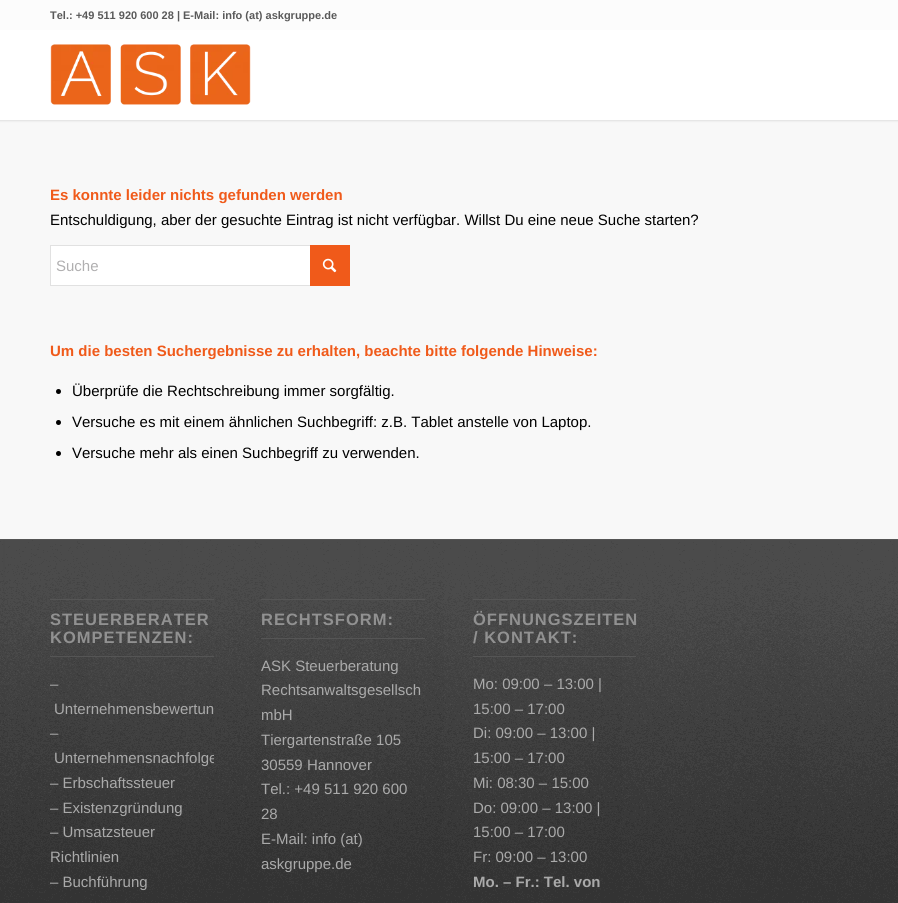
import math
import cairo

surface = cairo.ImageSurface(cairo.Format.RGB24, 898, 903)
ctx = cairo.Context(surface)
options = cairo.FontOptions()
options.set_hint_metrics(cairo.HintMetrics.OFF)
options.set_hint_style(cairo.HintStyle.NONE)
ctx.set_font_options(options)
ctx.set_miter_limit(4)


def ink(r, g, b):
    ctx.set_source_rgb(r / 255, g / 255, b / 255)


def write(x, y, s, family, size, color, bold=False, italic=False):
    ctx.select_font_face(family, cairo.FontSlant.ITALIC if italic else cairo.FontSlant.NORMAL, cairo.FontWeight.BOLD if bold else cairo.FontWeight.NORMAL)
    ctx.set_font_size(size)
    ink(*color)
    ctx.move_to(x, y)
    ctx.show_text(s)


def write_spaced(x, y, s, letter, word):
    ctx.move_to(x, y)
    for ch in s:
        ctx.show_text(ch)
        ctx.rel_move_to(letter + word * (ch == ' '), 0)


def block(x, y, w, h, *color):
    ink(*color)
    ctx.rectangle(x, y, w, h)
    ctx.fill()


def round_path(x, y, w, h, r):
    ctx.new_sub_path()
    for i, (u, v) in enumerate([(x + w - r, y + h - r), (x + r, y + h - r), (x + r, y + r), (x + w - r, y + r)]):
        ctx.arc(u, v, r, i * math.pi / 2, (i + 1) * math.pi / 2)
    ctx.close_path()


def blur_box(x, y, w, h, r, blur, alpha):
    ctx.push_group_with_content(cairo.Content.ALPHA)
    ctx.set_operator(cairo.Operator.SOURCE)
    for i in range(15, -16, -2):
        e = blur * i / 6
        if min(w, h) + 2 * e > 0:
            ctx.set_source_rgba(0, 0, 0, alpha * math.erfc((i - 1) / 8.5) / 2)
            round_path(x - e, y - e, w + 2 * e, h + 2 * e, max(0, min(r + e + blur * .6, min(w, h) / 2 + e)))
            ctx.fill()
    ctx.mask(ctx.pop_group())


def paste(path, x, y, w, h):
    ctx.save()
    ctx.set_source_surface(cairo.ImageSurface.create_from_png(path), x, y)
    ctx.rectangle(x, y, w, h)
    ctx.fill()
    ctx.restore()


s1 = dict(family="Liberation Sans", size=11, color=(89, 89, 89), bold=True)
s2 = dict(family="Liberation Sans", size=15, color=(240, 90, 26), bold=True)
s3 = dict(family="Liberation Sans", size=15, color=(0, 0, 0))
s4 = dict(family="Liberation Sans", size=15, color=(176, 175, 176))
s5 = dict(family="Liberation Sans", size=15, color=(170, 170, 170))
s6 = dict(family="Liberation Sans", size=15, color=(170, 170, 170), bold=True)

ink(248, 248, 248)
ctx.paint()
ink(0, 0, 0)
blur_box(-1, -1, 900, 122, 0, 1, 0.1)
block(0, 0, 898, 30, 252, 252, 252)
write(50, 19, "Tel.: +49 511 920 600 28 | E-Mail: info (at) askgruppe.de", **s1)
block(0, 30, 898, 90, 255, 255, 255)
paste("pic1.png", 50, 44, 201, 61)
write(50, 200, "Es konnte leider nichts gefunden werden", **s2)
write(50, 225, "Entschuldigung, aber der gesuchte Eintrag ist nicht verfügbar. Willst Du eine neue Suche starten?", **s3)
block(51, 246, 259, 39, 255, 255, 255)
ctx.rectangle(50.5, 245.5, 299, 40)
ink(225, 225, 225)
ctx.set_line_width(1)
ctx.stroke()
block(310, 245, 40, 41, 240, 90, 26)
write(56, 271, "Suche", **s4)
paste("pic2.png", 322, 258, 15, 15)
write(50, 356, "Um die besten Suchergebnisse zu erhalten, beachte bitte folgende Hinweise:", **s2)
ink(0, 0, 0)
ctx.new_path()
ctx.arc(58.5, 391.5, 2.5, 0, 2 * math.pi)
ctx.fill()
write(72, 396, "Überprüfe die Rechtschreibung immer sorgfältig.", **s3)
ctx.new_path()
ctx.arc(58.5, 422.5, 2.5, 0, 2 * math.pi)
ctx.fill()
write(72, 427, "Versuche es mit einem ähnlichen Suchbegriff: z.B. Tablet anstelle von Laptop.", **s3)
ctx.new_path()
ctx.arc(58.5, 453.5, 2.5, 0, 2 * math.pi)
ctx.fill()
write(72, 458, "Versuche mehr als einen Suchbegriff zu verwenden.", **s3)
block(0, 540, 898, 363, 51, 51, 51)
paste("pic3.png", 0, 540, 898, 363)
block(0, 539, 898, 1, 85, 85, 85)
block(50, 599, 164, 1, 85, 85, 85)
block(50, 656, 164, 1, 85, 85, 85)
ctx.select_font_face("Liberation Sans", cairo.FontSlant.NORMAL, cairo.FontWeight.BOLD)
ctx.set_font_size(16.5)
ink(145, 145, 145)
write_spaced(50, 625, "STEUERBERATER", 1, 0)
write_spaced(50, 643, "KOMPETENZEN:", 1, 0)
write(50, 689, "–", **s5)
write(54, 714, "Unternehmensbewertun", **s5)
write(50, 738, "–", **s5)
ctx.save()
ctx.rectangle(50, 585, 164, 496)
ctx.clip()
write(54, 763, "Unternehmensnachfolge", **s5)
ctx.restore()
write(50, 788, "– Erbschaftssteuer", **s5)
write(50, 813, "– Existenzgründung", **s5)
write(50, 837, "– Umsatzsteuer", **s5)
write(50, 862, "Richtlinien", **s5)
write(50, 887, "– Buchführung", **s5)
block(261, 599, 164, 1, 85, 85, 85)
block(261, 638, 164, 1, 85, 85, 85)
ctx.select_font_face("Liberation Sans", cairo.FontSlant.NORMAL, cairo.FontWeight.BOLD)
ctx.set_font_size(16.5)
ink(145, 145, 145)
write_spaced(261, 625, "RECHTSFORM:", 1, 0)
write(261, 671, "ASK Steuerberatung", **s5)
write(261, 695, "Rechtsanwaltsgesellsch", **s5)
write(261, 720, "mbH", **s5)
write(261, 745, "Tiergartenstraße 105", **s5)
write(261, 770, "30559 Hannover", **s5)
write(261, 794, "Tel.: +49 511 920 600", **s5)
write(261, 819, "28", **s5)
write(261, 844, "E-Mail: info (at)", **s5)
write(261, 869, "askgruppe.de", **s5)
block(473, 599, 163, 1, 85, 85, 85)
block(473, 656, 163, 1, 85, 85, 85)
ctx.select_font_face("Liberation Sans", cairo.FontSlant.NORMAL, cairo.FontWeight.BOLD)
ctx.set_font_size(16.5)
ink(145, 145, 145)
write_spaced(473, 625, "ÖFFNUNGSZEITEN", 1, 0)
write_spaced(473, 643, "/ KONTAKT:", 1, 0)
write(473, 689, "Mo: 09:00 – 13:00 |", **s5)
write(473, 714, "15:00 – 17:00", **s5)
write(473, 738, "Di: 09:00 – 13:00 |", **s5)
write(473, 763, "15:00 – 17:00", **s5)
write(473, 788, "Mi: 08:30 – 15:00", **s5)
write(473, 813, "Do: 09:00 – 13:00 |", **s5)
write(473, 837, "15:00 – 17:00", **s5)
write(473, 862, "Fr: 09:00 – 13:00", **s5)
write(473, 887, "Mo. – Fr.: Tel. von", **s6)
surface.write_to_png("screenshot.png")
